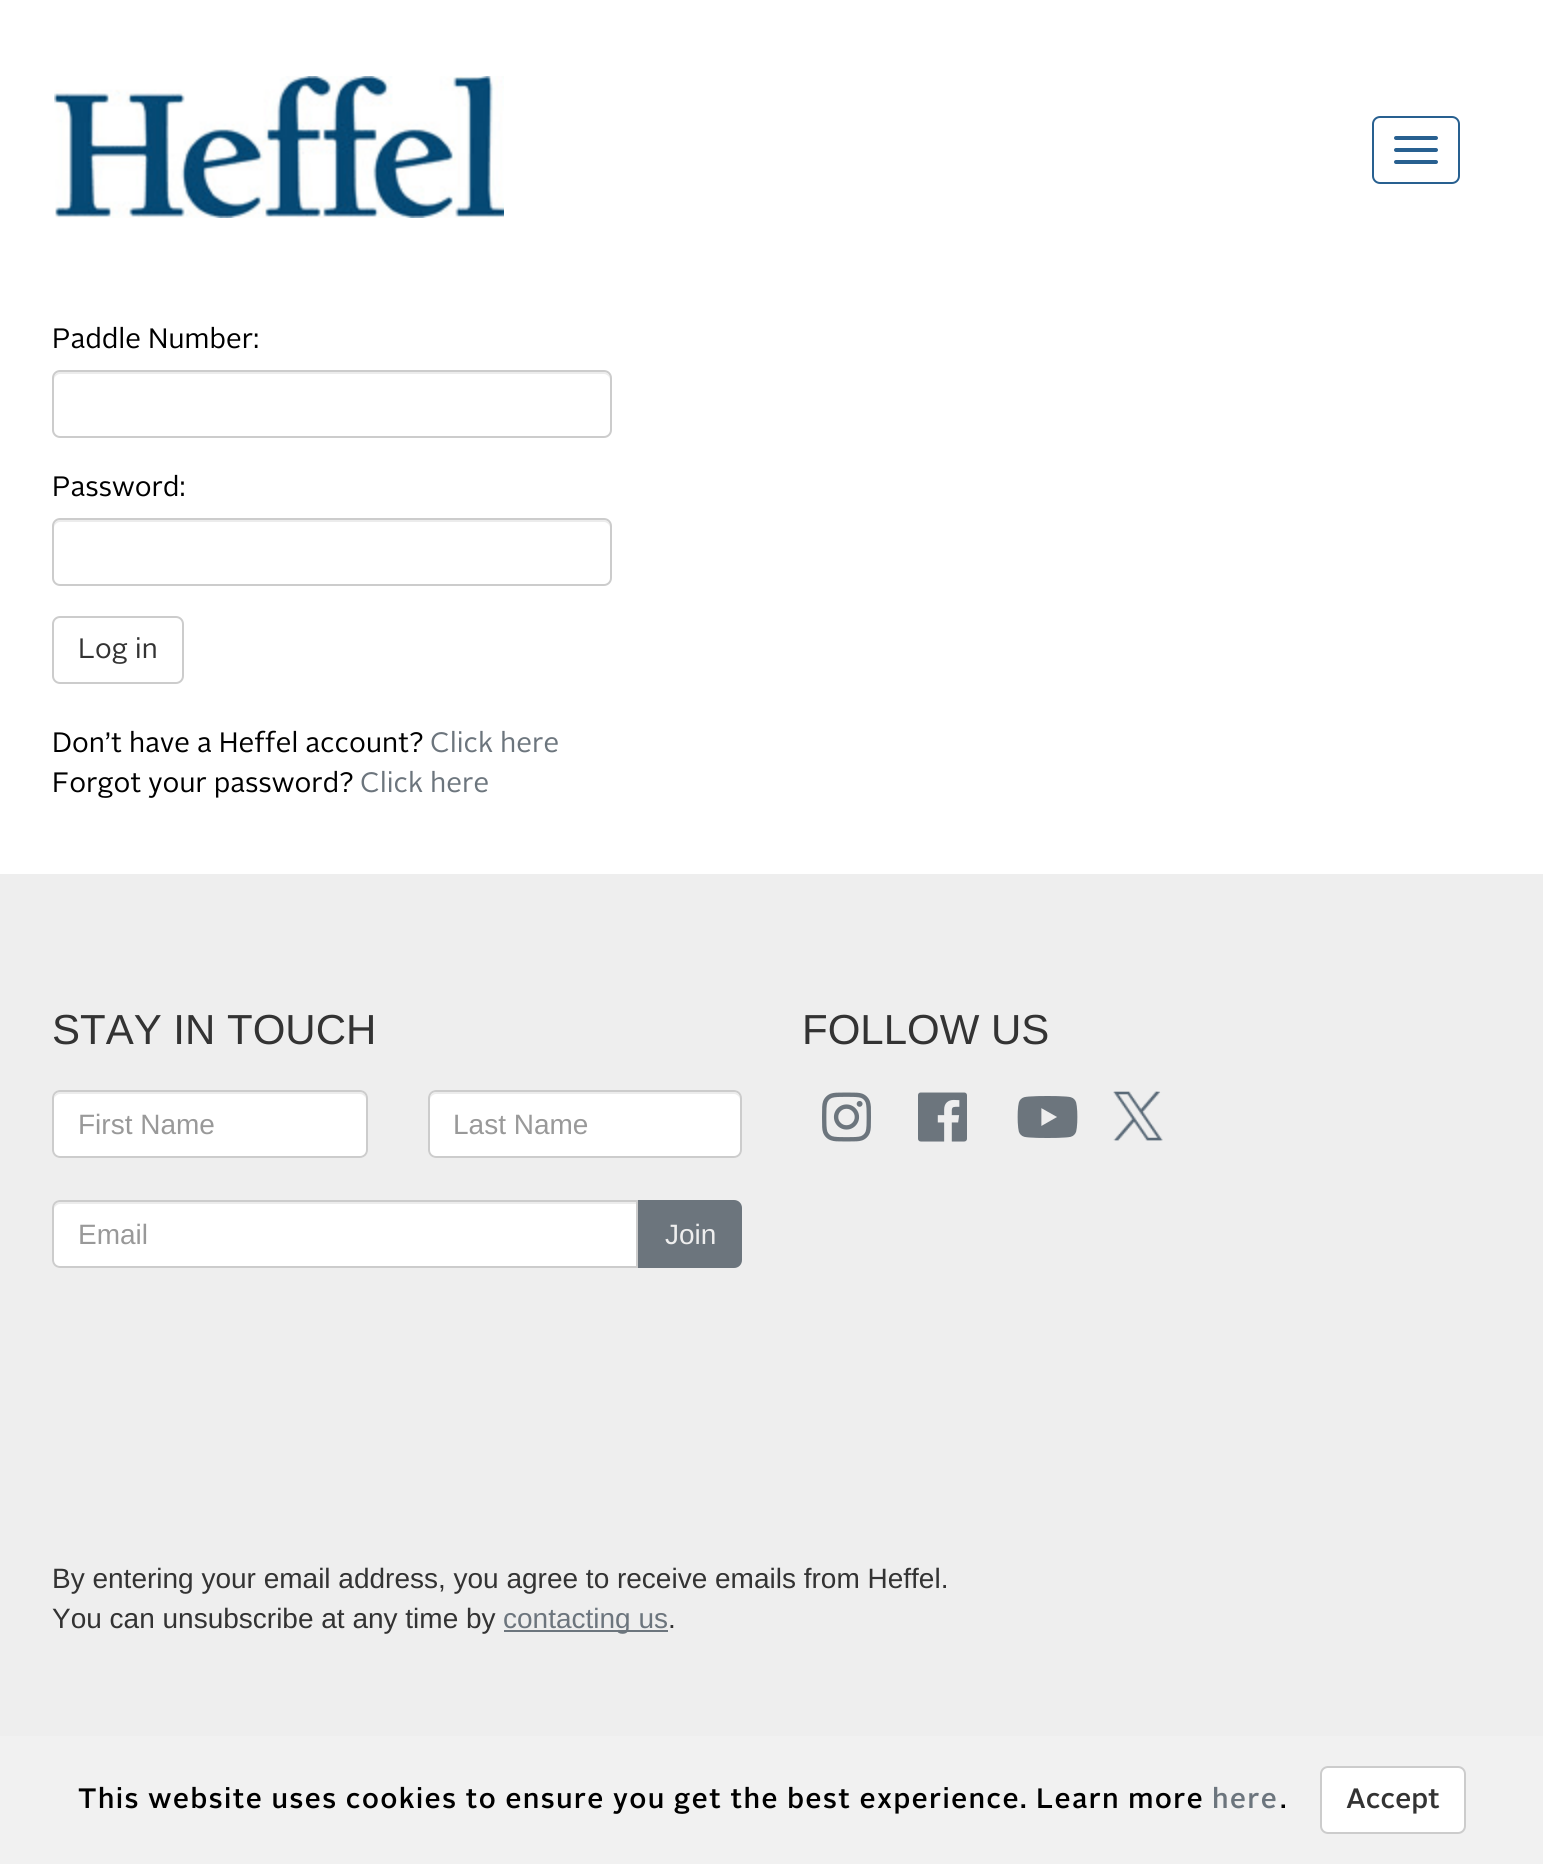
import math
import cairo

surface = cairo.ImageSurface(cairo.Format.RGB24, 1543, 1864)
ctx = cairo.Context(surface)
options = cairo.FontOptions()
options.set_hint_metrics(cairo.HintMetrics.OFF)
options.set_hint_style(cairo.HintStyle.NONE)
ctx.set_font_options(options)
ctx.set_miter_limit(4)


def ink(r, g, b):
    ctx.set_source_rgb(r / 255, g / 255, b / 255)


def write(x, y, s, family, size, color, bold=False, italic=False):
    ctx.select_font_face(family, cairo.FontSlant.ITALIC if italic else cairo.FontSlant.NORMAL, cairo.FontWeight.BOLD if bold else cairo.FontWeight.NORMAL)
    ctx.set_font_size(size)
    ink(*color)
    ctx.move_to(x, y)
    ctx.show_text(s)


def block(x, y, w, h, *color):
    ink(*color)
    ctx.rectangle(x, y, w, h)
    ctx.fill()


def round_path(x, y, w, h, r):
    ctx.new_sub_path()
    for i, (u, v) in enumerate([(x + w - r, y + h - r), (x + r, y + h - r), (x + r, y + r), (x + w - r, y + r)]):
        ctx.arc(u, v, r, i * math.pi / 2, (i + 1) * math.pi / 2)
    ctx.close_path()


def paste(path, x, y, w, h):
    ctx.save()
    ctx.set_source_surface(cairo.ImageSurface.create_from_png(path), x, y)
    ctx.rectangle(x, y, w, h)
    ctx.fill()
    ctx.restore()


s1 = dict(family="Liberation Sans", size=42, color=(51, 51, 51))
s2 = dict(family="Liberation Sans", size=28, color=(153, 153, 153))
s3 = dict(family="Liberation Sans", size=28, color=(238, 238, 238))
s4 = dict(family="Liberation Sans", size=28, color=(51, 51, 51))
s5 = dict(family="Liberation Sans", size=28, color=(108, 117, 125))

ink(255, 255, 255)
ctx.paint()
paste("pic1.png", 54, 76, 450, 142)
round_path(1373, 117, 86, 66, 7)
ink(40, 96, 144)
ctx.stroke()
round_path(1394, 136, 44, 4, 2)
ctx.fill()
round_path(1394, 148, 44, 4, 2)
ctx.fill()
round_path(1394, 160, 44, 4, 2)
ctx.fill()
paste("pic2.png", 54, 326, 204, 23)
ink(236, 236, 236)
ctx.new_path()
ctx.move_to(60, 374)
ctx.line_to(604, 374)
ctx.curve_to(607, 374, 610, 377, 610, 380)
ctx.line_to(610, 378)
ctx.curve_to(610, 375, 607, 372, 604, 372)
ctx.line_to(60, 372)
ctx.curve_to(57, 372, 54, 375, 54, 378)
ctx.line_to(54, 380)
ctx.curve_to(54, 377, 57, 374, 60, 374)
ctx.close_path()
ctx.fill()
round_path(53, 371, 558, 66, 7)
ink(204, 204, 204)
ctx.stroke()
paste("pic3.png", 54, 474, 130, 23)
ink(236, 236, 236)
ctx.new_path()
ctx.move_to(60, 522)
ctx.line_to(604, 522)
ctx.curve_to(607, 522, 610, 525, 610, 528)
ctx.line_to(610, 526)
ctx.curve_to(610, 523, 607, 520, 604, 520)
ctx.line_to(60, 520)
ctx.curve_to(57, 520, 54, 523, 54, 526)
ctx.line_to(54, 528)
ctx.curve_to(54, 525, 57, 522, 60, 522)
ctx.close_path()
ctx.fill()
round_path(53, 519, 558, 66, 7)
ink(204, 204, 204)
ctx.stroke()
round_path(53, 617, 130, 66, 7)
ctx.stroke()
paste("pic4.png", 80, 637, 76, 27)
paste("pic5.png", 54, 730, 369, 23)
paste("pic6.png", 431, 730, 127, 23)
paste("pic7.png", 54, 770, 299, 28)
paste("pic6.png", 361, 770, 127, 23)
block(0, 874, 1543, 862, 238, 238, 238)
write(52, 1044, "STAY IN TOUCH", **s1)
ink(255, 255, 255)
round_path(52, 1090, 316, 68, 8)
ctx.fill()
ink(236, 236, 236)
ctx.new_path()
ctx.move_to(60, 1094)
ctx.line_to(360, 1094)
ctx.curve_to(363, 1094, 366, 1097, 366, 1100)
ctx.curve_to(366, 1096, 365, 1092, 360, 1092)
ctx.line_to(59, 1092)
ctx.curve_to(55, 1093, 54, 1097, 54, 1100)
ctx.curve_to(54, 1097, 57, 1094, 60, 1094)
ctx.close_path()
ctx.fill()
round_path(53, 1091, 314, 66, 7)
ink(204, 204, 204)
ctx.stroke()
write(78, 1134, "First Name", **s2)
ink(255, 255, 255)
round_path(428, 1090, 314, 68, 8)
ctx.fill()
ink(236, 236, 236)
ctx.new_path()
ctx.move_to(436, 1094)
ctx.line_to(734, 1094)
ctx.curve_to(737, 1094, 740, 1097, 740, 1100)
ctx.line_to(740, 1098)
ctx.curve_to(740, 1095, 737, 1092, 734, 1092)
ctx.line_to(436, 1092)
ctx.curve_to(433, 1092, 430, 1095, 430, 1098)
ctx.line_to(430, 1100)
ctx.curve_to(430, 1097, 433, 1094, 436, 1094)
ctx.close_path()
ctx.fill()
round_path(429, 1091, 312, 66, 7)
ink(204, 204, 204)
ctx.stroke()
write(453, 1134, "Last Name", **s2)
ink(255, 255, 255)
ctx.new_path()
ctx.move_to(60, 1200)
ctx.line_to(638, 1200)
ctx.line_to(638, 1268)
ctx.line_to(60, 1268)
ctx.curve_to(55.5, 1268, 52, 1264.5, 52, 1260)
ctx.line_to(52, 1208)
ctx.curve_to(52, 1203.5, 55.5, 1200, 60, 1200)
ctx.close_path()
ctx.fill()
ink(236, 236, 236)
ctx.new_path()
ctx.move_to(60, 1204)
ctx.line_to(636, 1204)
ctx.line_to(636, 1202)
ctx.line_to(60, 1202)
ctx.curve_to(55, 1202, 54, 1206, 54, 1210)
ctx.curve_to(54, 1207, 57, 1204, 60, 1204)
ctx.close_path()
ctx.fill()
ctx.new_path()
ctx.move_to(60, 1201)
ctx.line_to(637, 1201)
ctx.line_to(637, 1267)
ctx.line_to(60, 1267)
ctx.curve_to(56, 1267, 53, 1264, 53, 1260)
ctx.line_to(53, 1208)
ctx.curve_to(53, 1204, 56, 1201, 60, 1201)
ctx.close_path()
ink(204, 204, 204)
ctx.stroke()
write(78, 1244, "Email", **s2)
ink(108, 117, 125)
ctx.new_path()
ctx.move_to(639, 1201)
ctx.line_to(734, 1201)
ctx.curve_to(738, 1201, 741, 1204, 741, 1208)
ctx.line_to(741, 1260)
ctx.curve_to(741, 1264, 738, 1267, 734, 1267)
ctx.line_to(639, 1267)
ctx.close_path()
ctx.fill_preserve()
ctx.stroke()
write(665, 1244, "Join", **s3)
write(802, 1044, "FOLLOW US", **s1)
paste("pic8.png", 822, 1092, 49, 50)
paste("pic9.png", 918, 1092, 49, 50)
paste("pic10.png", 1017, 1096, 61, 42)
paste("pic11.png", 1113, 1091, 50, 50)
write(52, 1588, "By entering your email address, you agree to receive emails from Heffel.", **s4)
write(52, 1628, "You can unsubscribe at any time by", **s4)
block(504, 1630, 164, 2, 108, 117, 125)
write(503, 1628, "contacting us", **s5)
write(668, 1628, ".", **s4)
block(0, 1736, 1543, 128, 241, 241, 241)
paste("pic12.png", 78, 1786, 1124, 28)
paste("pic13.png", 1214, 1786, 62, 23)
ink(0, 0, 0)
ctx.new_path()
ctx.move_to(1281.5, 1808)
ctx.line_to(1285, 1808)
ctx.line_to(1285, 1804.5)
ctx.line_to(1281.5, 1804.5)
ctx.close_path()
ctx.fill()
ink(255, 255, 255)
round_path(1321, 1767, 144, 66, 7)
ctx.fill_preserve()
ink(204, 204, 204)
ctx.stroke()
paste("pic14.png", 1346, 1788, 94, 26)
surface.write_to_png("screenshot.png")
